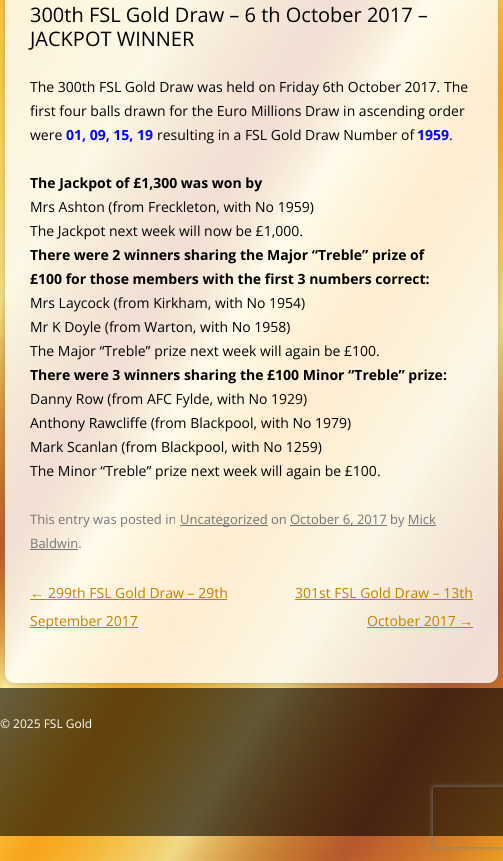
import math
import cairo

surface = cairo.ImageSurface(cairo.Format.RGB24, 503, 861)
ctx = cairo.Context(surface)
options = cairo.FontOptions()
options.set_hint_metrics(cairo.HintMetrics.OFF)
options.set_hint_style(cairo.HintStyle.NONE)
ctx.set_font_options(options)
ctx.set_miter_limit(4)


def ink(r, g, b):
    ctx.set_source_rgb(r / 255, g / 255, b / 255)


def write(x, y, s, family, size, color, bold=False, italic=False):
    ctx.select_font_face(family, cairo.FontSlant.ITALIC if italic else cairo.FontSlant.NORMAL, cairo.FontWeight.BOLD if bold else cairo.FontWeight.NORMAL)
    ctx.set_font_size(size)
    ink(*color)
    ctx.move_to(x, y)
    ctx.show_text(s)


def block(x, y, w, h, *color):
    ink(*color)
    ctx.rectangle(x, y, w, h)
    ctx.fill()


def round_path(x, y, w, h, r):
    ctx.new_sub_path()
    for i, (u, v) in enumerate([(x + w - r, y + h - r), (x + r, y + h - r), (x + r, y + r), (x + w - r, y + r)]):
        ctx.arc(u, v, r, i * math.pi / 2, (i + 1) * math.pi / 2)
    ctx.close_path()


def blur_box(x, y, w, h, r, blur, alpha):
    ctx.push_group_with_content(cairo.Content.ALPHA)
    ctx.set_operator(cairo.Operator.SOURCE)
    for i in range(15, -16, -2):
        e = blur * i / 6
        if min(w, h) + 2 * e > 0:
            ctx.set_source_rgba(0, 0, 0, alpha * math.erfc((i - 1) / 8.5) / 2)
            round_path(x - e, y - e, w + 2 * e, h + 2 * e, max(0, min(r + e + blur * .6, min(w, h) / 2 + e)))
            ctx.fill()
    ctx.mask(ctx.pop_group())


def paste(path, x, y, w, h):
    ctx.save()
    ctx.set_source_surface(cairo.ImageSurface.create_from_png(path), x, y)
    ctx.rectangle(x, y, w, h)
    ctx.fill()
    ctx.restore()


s1 = dict(family="Open Sans", size=20, color=(0, 0, 0))
s2 = dict(family="Open Sans", size=14, color=(0, 0, 0))
s3 = dict(family="Open Sans", size=14, color=(0, 0, 255), bold=True)
s4 = dict(family="Open Sans", size=14, color=(0, 0, 0), bold=True)
s5 = dict(family="Open Sans", size=13, color=(117, 117, 117))
s6 = dict(family="Liberation Sans", size=14, color=(196, 128, 0))
s7 = dict(family="Open Sans", size=14, color=(196, 128, 0))
s8 = dict(family="Open Sans", size=12, color=(255, 255, 255))

ink(255, 255, 255)
ctx.paint()
paste("pic1.png", 0, 0, 503, 861)
ctx.save()
ctx.set_fill_rule(cairo.FillRule.EVEN_ODD)
ctx.new_path()
ctx.move_to(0, 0)
ctx.line_to(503, 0)
ctx.line_to(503, 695)
ctx.line_to(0, 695)
ctx.close_path()
ctx.move_to(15, -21)
ctx.line_to(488, -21)
ctx.curve_to(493.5, -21, 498, -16.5, 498, -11)
ctx.line_to(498, 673)
ctx.curve_to(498, 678.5, 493.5, 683, 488, 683)
ctx.line_to(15, 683)
ctx.curve_to(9.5, 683, 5, 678.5, 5, 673)
ctx.line_to(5, -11)
ctx.curve_to(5, -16.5, 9.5, -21, 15, -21)
ctx.close_path()
ctx.clip()
ink(100, 100, 100)
blur_box(5, -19, 493, 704, 10, 3, 0.3)
ctx.restore()
ctx.set_source_rgba(1, 1, 1, 0.8)
round_path(5, -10, 493, 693, 10)
ctx.fill()
write(30, 22, "300th FSL Gold Draw – 6 th October 2017 –", **s1)
write(30, 46, "JACKPOT WINNER", **s1)
write(30, 92, "The 300th FSL Gold Draw was held on Friday 6th October 2017. The", **s2)
write(30, 116, "first four balls drawn for the Euro Millions Draw in ascending order", **s2)
write(30, 140, "were", **s2)
write(66, 140, "01, 09, 15, 19", **s3)
write(157, 140, "resulting in a FSL Gold Draw Number of", **s2)
write(417, 140, "1959", **s3)
write(449, 140, ".", **s2)
write(30, 188, "The Jackpot of £1,300 was won by", **s4)
write(30, 212, "Mrs Ashton (from Freckleton, with No 1959)", **s2)
write(30, 236, "The Jackpot next week will now be £1,000.", **s2)
write(30, 260, "There were 2 winners sharing the Major “Treble” prize of", **s4)
write(30, 284, "£100 for those members with the first 3 numbers correct:", **s4)
write(30, 308, "Mrs Laycock (from Kirkham, with No 1954)", **s2)
write(30, 332, "Mr K Doyle (from Warton, with No 1958)", **s2)
write(30, 356, "The Major “Treble” prize next week will again be £100.", **s2)
write(30, 380, "There were 3 winners sharing the £100 Minor “Treble” prize:", **s4)
write(30, 404, "Danny Row (from AFC Fylde, with No 1929)", **s2)
write(30, 428, "Anthony Rawcliffe (from Blackpool, with No 1979)", **s2)
write(30, 452, "Mark Scanlan (from Blackpool, with No 1259)", **s2)
write(30, 476, "The Minor “Treble” prize next week will again be £100.", **s2)
write(30, 524, "This entry was posted in", **s5)
block(180, 525, 88, 1, 117, 117, 117)
write(180, 524, "Uncategorized on", **s5)
block(290, 525, 97, 1, 117, 117, 117)
write(290, 524, "October 6, 2017 by Mick", **s5)
write(30, 548, "Baldwin.", **s5)
block(408, 525, 28, 1, 117, 117, 117)
block(30, 549, 48, 1, 117, 117, 117)
write(30, 598, "←", **s6)
block(30, 599, 197, 1, 196, 128, 0)
write(48, 598, "299th FSL Gold Draw – 29th", **s7)
block(30, 627, 108, 1, 196, 128, 0)
write(30, 626, "September 2017", **s7)
write(295, 598, "301st FSL Gold Draw – 13th", **s7)
block(295, 599, 178, 1, 196, 128, 0)
write(367, 626, "October 2017", **s7)
write(459, 626, "→", **s6)
block(367, 627, 106, 1, 196, 128, 0)
ctx.set_source_rgba(0, 0, 0, 0.6)
ctx.rectangle(0, 688, 503, 148)
ctx.fill()
write(0, 728, "© 2025 FSL Gold", **s8)
ctx.save()
ctx.set_fill_rule(cairo.FillRule.EVEN_ODD)
ctx.new_path()
ctx.move_to(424, 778)
ctx.line_to(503, 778)
ctx.line_to(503, 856)
ctx.line_to(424, 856)
ctx.close_path()
ctx.move_to(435, 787)
ctx.line_to(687, 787)
ctx.curve_to(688, 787, 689, 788, 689, 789)
ctx.line_to(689, 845)
ctx.curve_to(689, 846, 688, 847, 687, 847)
ctx.line_to(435, 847)
ctx.curve_to(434, 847, 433, 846, 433, 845)
ctx.line_to(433, 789)
ctx.curve_to(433, 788, 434, 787, 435, 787)
ctx.close_path()
ctx.clip()
ink(128, 128, 128)
blur_box(433, 787, 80, 60, 2, 2.5, 1)
ctx.restore()
surface.write_to_png("screenshot.png")
